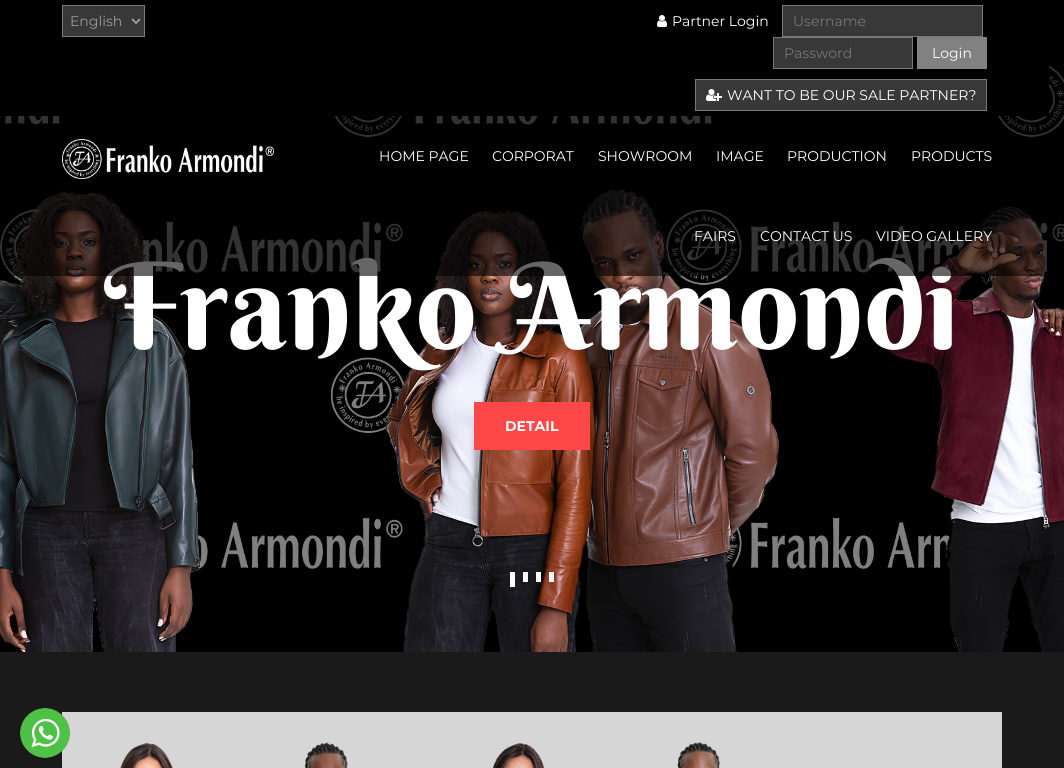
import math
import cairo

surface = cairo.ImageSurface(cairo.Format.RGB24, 1064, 768)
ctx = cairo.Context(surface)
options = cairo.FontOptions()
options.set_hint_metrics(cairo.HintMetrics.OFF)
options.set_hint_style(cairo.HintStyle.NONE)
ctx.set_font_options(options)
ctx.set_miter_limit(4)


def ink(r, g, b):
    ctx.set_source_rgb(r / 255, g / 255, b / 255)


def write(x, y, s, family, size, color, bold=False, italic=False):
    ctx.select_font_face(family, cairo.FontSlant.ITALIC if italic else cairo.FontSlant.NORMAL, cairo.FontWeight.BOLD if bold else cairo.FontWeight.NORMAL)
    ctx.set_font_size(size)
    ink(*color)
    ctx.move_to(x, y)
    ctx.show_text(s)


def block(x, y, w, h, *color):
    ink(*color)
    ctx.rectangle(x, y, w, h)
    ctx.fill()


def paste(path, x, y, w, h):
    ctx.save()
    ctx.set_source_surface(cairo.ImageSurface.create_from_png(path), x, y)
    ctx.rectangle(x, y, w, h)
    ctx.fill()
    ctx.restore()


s1 = dict(family="Berkshire Swash", size=120, color=(255, 255, 255))
s2 = dict(family="Montserrat", size=14, color=(153, 153, 153))
s3 = dict(family="Montserrat", size=14, color=(255, 255, 255))
s4 = dict(family="Montserrat", size=14, color=(117, 117, 117))
s5 = dict(family="Montserrat", size=14, color=(255, 255, 255), bold=True)

ink(26, 26, 26)
ctx.paint()
paste("pic4.png", 0, 0, 1064, 652)
write(104, 349, "Franko Armondi", **s1)
ctx.set_source_rgba(0, 0, 0, 0.6)
ctx.rectangle(0, 61, 1064, 215)
ctx.fill()
block(42, 61, 1007, 13, 0, 0, 0)
ink(56, 56, 56)
ctx.rectangle(62.5, 5.5, 82, 31)
ctx.fill_preserve()
ink(120, 120, 120)
ctx.set_line_width(1)
ctx.stroke()
ctx.new_path()
ctx.move_to(132, 19)
ctx.line_to(136, 23)
ctx.line_to(140, 19)
ink(153, 153, 153)
ctx.set_line_width(2)
ctx.stroke()
write(70, 26, "English", **s2)
paste("pic1.png", 657, 15, 10, 12)
write(672, 26, "Partner Login", **s3)
ink(56, 56, 56)
ctx.rectangle(782.5, 5.5, 200, 31)
ctx.fill_preserve()
ink(120, 120, 120)
ctx.set_line_width(1)
ctx.stroke()
write(793, 26, "Username", **s4)
ink(56, 56, 56)
ctx.rectangle(773.5, 37.5, 139, 31)
ctx.fill_preserve()
ink(120, 120, 120)
ctx.stroke()
write(784, 58, "Password", **s4)
block(917, 37, 70, 32, 129, 129, 129)
write(932, 58, "Login", **s3)
block(0, 74, 1049, 42, 0, 0, 0)
ink(56, 56, 56)
ctx.rectangle(695.5, 79.5, 291, 31)
ctx.fill_preserve()
ink(120, 120, 120)
ctx.stroke()
paste("pic2.png", 706, 89, 16, 12)
write(727, 100, "WANT TO BE OUR SALE PARTNER?", **s3)
paste("pic3.png", 62, 139, 212, 40)
write(379, 161, "HOME PAGE", **s3)
write(492, 161, "CORPORAT", **s3)
write(598, 161, "SHOWROOM", **s3)
write(716, 161, "IMAGE", **s3)
write(787, 161, "PRODUCTION", **s3)
write(911, 161, "PRODUCTS", **s3)
write(694, 241, "FAIRS", **s3)
write(760, 241, "CONTACT US", **s3)
write(876, 241, "VIDEO GALLERY", **s3)
block(474, 402, 116, 48, 254, 72, 71)
write(505, 431, "DETAIL", **s5)
block(510, 572, 5, 15, 255, 255, 255)
block(523, 572, 5, 10, 255, 255, 255)
block(536, 572, 5, 10, 255, 255, 255)
block(549, 572, 5, 10, 255, 255, 255)
paste("pic6.png", 62, 712, 940, 56)
paste("pic5.png", 20, 708, 50, 50)
surface.write_to_png("screenshot.png")
